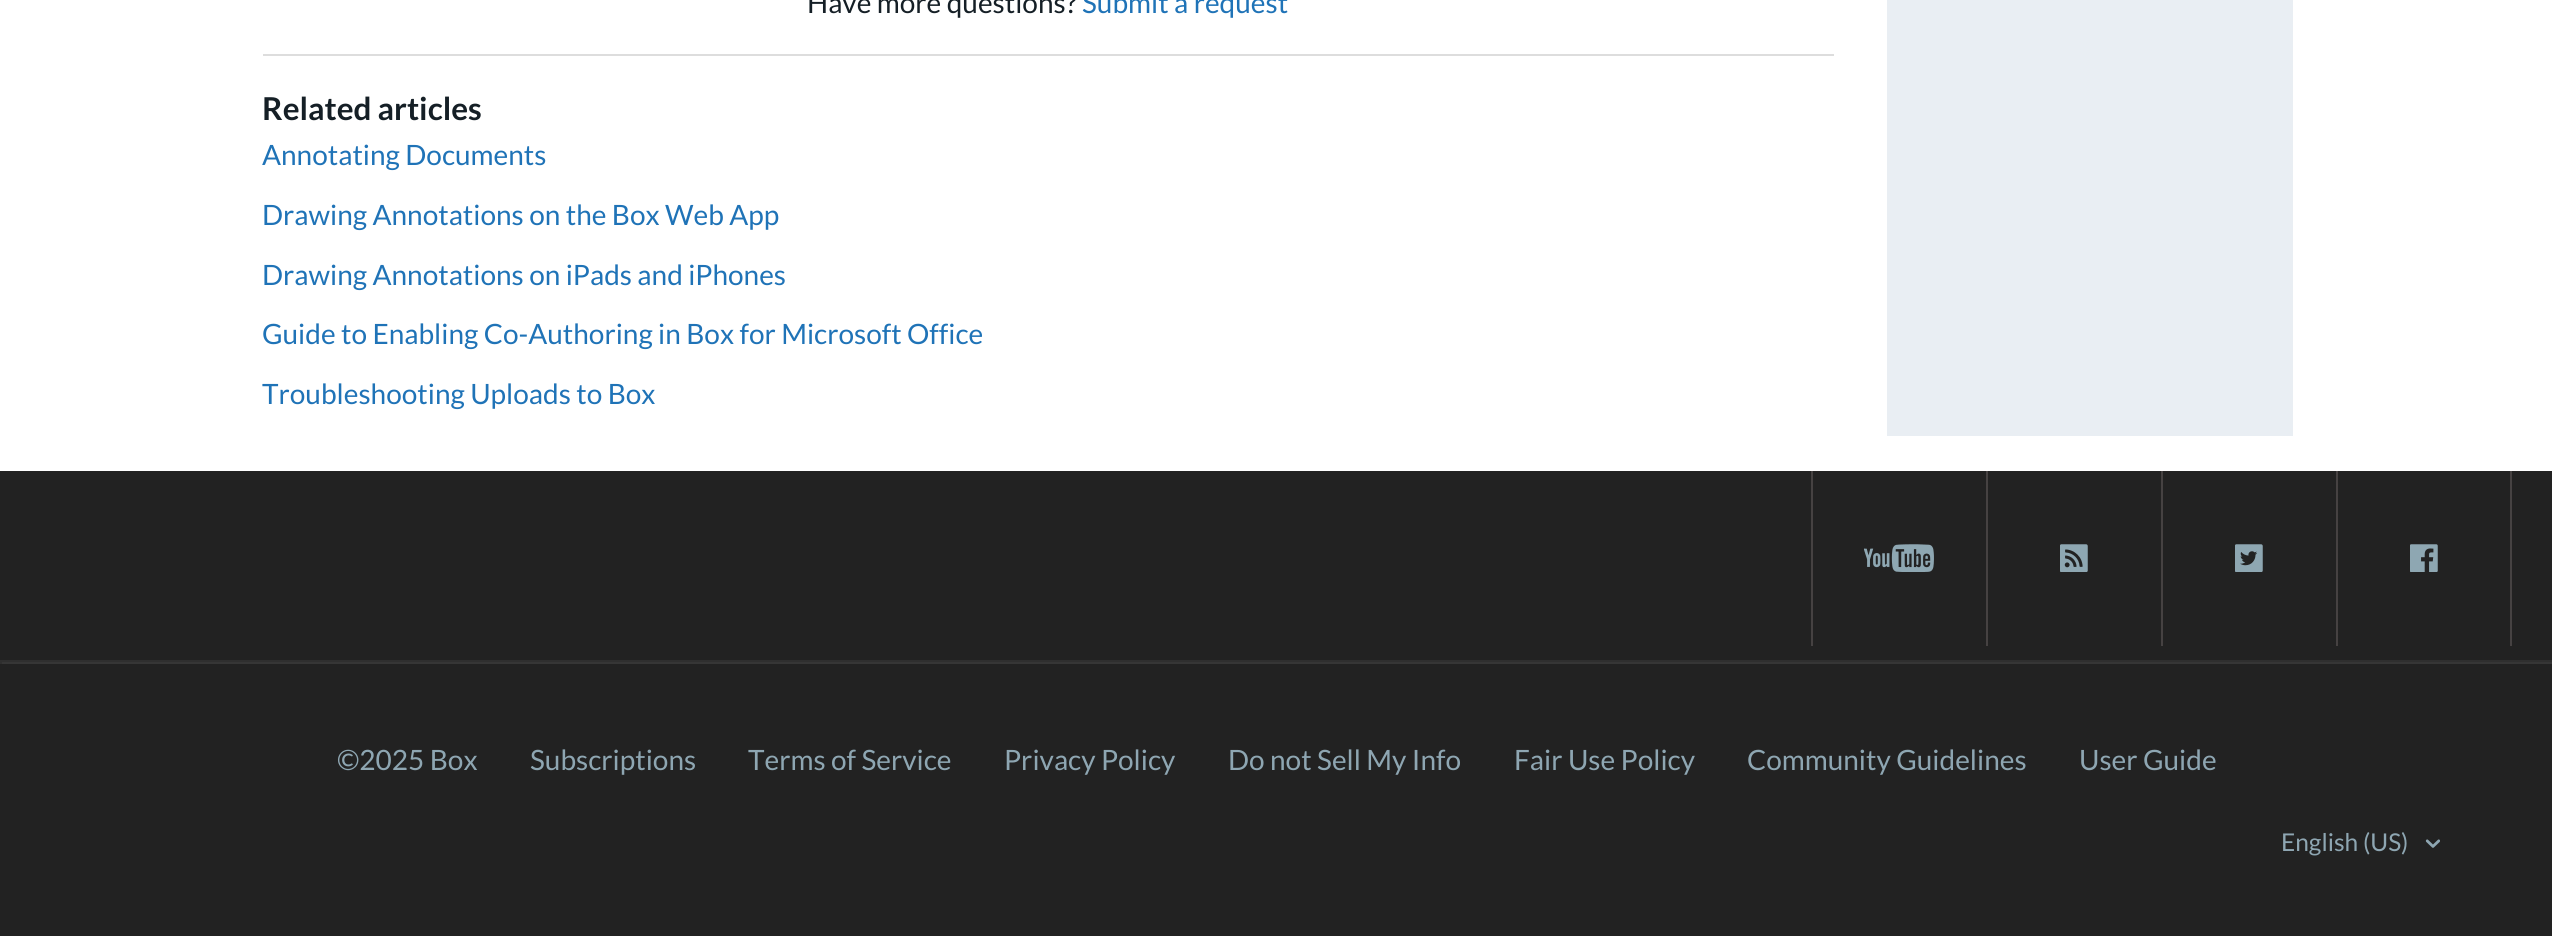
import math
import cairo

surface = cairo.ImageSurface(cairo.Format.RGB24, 2552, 936)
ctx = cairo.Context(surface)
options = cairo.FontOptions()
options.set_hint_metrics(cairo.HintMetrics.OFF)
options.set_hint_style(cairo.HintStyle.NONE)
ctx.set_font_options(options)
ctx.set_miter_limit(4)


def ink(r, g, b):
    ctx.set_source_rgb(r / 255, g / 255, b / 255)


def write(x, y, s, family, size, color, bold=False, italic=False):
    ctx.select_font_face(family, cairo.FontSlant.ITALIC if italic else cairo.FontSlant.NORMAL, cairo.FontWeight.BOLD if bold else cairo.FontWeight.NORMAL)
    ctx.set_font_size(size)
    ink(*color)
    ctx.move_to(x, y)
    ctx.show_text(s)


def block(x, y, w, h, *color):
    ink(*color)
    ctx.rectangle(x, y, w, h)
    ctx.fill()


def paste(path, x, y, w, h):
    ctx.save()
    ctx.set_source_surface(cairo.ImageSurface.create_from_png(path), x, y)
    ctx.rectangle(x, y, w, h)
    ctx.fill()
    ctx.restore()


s1 = dict(family="Lato", size=28, color=(21, 31, 38))
s2 = dict(family="Lato", size=28, color=(31, 115, 183))
s3 = dict(family="Lato", size=31.5, color=(21, 31, 38), bold=True)
s4 = dict(family="Lato", size=28, color=(142, 166, 178))
s5 = dict(family="Lato", size=24.5, color=(142, 166, 178))

ink(255, 255, 255)
ctx.paint()
write(807, 13, "Have more questions?", **s1)
write(1082, 13, "Submit a request", **s2)
block(263, 54, 1571, 2, 221, 221, 221)
write(262, 120, "Related articles", **s3)
write(262, 165, "Annotating Documents", **s2)
write(262, 225, "Drawing Annotations on the Box Web App", **s2)
write(262, 285, "Drawing Annotations on iPads and iPhones", **s2)
write(262, 344, "Guide to Enabling Co-Authoring in Box for Microsoft Office", **s2)
write(262, 404, "Troubleshooting Uploads to Box", **s2)
block(1887, 0, 406, 436, 233, 238, 243)
block(0, 471, 2552, 465, 34, 34, 34)
block(1811, 471, 2, 175, 70, 66, 66)
paste("pic1.png", 1864, 544, 70, 28)
block(1986, 471, 2, 175, 70, 66, 66)
paste("pic2.png", 2060, 544, 28, 28)
block(2161, 471, 2, 175, 70, 66, 66)
paste("pic3.png", 2235, 544, 28, 28)
block(2510, 471, 2, 175, 70, 66, 66)
block(2336, 471, 2, 175, 70, 66, 66)
paste("pic4.png", 2410, 544, 28, 28)
block(0, 660, 2552, 2, 47, 47, 47)
block(0, 662, 2552, 2, 54, 54, 54)
block(0, 660, 2, 4, 47, 47, 47)
write(337, 770, "©2025 Box", **s4)
write(530, 770, "Subscriptions", **s4)
write(748, 770, "Terms of Service", **s4)
write(1004, 770, "Privacy Policy", **s4)
write(1228, 770, "Do not Sell My Info", **s4)
write(1514, 770, "Fair Use Policy", **s4)
write(1747, 770, "Community Guidelines", **s4)
write(2079, 770, "User Guide", **s4)
write(2281, 851, "English (US)", **s5)
paste("pic5.png", 2425, 839, 15, 9)
surface.write_to_png("screenshot.png")
